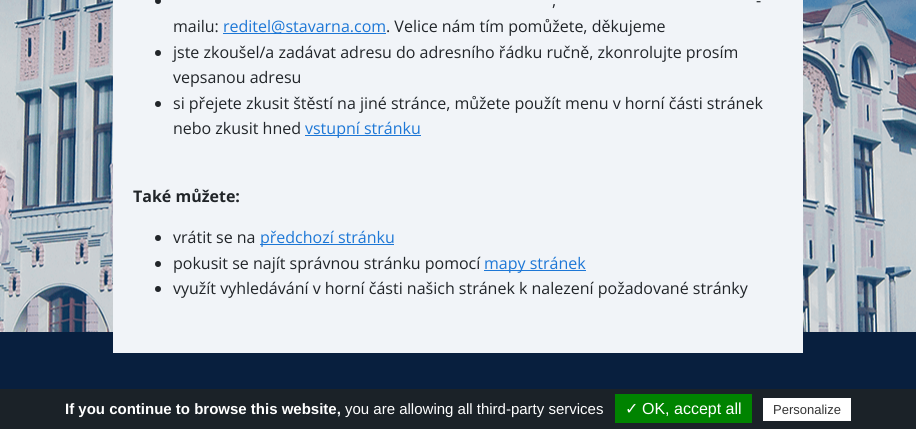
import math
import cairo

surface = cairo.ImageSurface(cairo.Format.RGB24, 916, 429)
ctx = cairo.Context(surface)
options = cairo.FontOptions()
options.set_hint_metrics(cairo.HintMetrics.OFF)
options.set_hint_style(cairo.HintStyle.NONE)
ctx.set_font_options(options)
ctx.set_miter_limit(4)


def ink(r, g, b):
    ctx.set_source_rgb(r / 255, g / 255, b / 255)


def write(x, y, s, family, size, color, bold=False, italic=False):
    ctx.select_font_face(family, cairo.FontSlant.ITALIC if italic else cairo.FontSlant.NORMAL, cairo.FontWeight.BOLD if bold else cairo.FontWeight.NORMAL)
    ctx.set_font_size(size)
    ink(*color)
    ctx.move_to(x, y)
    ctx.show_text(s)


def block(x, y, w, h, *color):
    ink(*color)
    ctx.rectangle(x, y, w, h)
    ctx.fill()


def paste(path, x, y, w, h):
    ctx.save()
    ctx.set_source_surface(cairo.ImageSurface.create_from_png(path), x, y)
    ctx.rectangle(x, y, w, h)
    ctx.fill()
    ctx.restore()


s1 = dict(family="Open Sans", size=16, color=(33, 37, 41))
s2 = dict(family="Open Sans", size=16, color=(29, 119, 214))
s3 = dict(family="Open Sans", size=16, color=(33, 37, 41), bold=True)
s4 = dict(family="Liberation Sans", size=15, color=(255, 255, 255), bold=True)
s5 = dict(family="Liberation Sans", size=15, color=(255, 255, 255))
s6 = dict(family="DejaVu Sans", size=16, color=(255, 255, 255))
s7 = dict(family="Liberation Sans", size=16, color=(255, 255, 255))
s8 = dict(family="Liberation Sans", size=13, color=(51, 51, 51))

ink(8, 31, 62)
ctx.paint()
block(0, 389, 916, 40, 27, 34, 40)
paste("pic1.png", 0, 0, 916, 332)
block(113, 0, 690, 353, 241, 244, 248)
ink(33, 37, 41)
ctx.arc(158, 1, 3, 0, 2 * math.pi)
ctx.fill()
write(756, 6, "-", **s1)
write(552, 6, ",", **s1)
write(173, 32, "mailu:", **s1)
block(223, 33, 163, 1, 29, 119, 214)
write(223, 32, "reditel@stavarna.com", **s2)
write(386, 32, ". Velice nám tím pomůžete, děkujeme", **s1)
ctx.new_path()
ctx.arc(158, 53, 3, 0, 2 * math.pi)
ctx.fill()
write(173, 58, "jste zkoušel/a zadávat adresu do adresního řádku ručně, zkonrolujte prosím", **s1)
write(173, 83, "vepsanou adresu", **s1)
ctx.new_path()
ctx.arc(158, 104, 3, 0, 2 * math.pi)
ctx.fill()
write(173, 109, "si přejete zkusit štěstí na jiné stránce, můžete použít menu v horní části stránek", **s1)
write(173, 134, "nebo zkusit hned", **s1)
block(305, 135, 116, 1, 29, 119, 214)
write(305, 134, "vstupní stránku", **s2)
write(133, 202, "Také můžete:", **s3)
ctx.new_path()
ctx.arc(158, 238, 3, 0, 2 * math.pi)
ctx.fill()
write(173, 243, "vrátit se na", **s1)
block(260, 244, 134, 1, 29, 119, 214)
write(260, 243, "předchozí stránku", **s2)
ink(33, 37, 41)
ctx.new_path()
ctx.arc(158, 264, 3, 0, 2 * math.pi)
ctx.fill()
write(173, 269, "pokusit se najít správnou stránku pomocí", **s1)
block(484, 270, 102, 1, 29, 119, 214)
write(484, 269, "mapy stránek", **s2)
ink(33, 37, 41)
ctx.new_path()
ctx.arc(158, 289, 3, 0, 2 * math.pi)
ctx.fill()
write(173, 294, "využít vyhledávání v horní části našich stránek k nalezení požadované stránky", **s1)
write(65, 414, "If you continue to browse this website,", **s4)
write(345, 414, "you are allowing all third-party services", **s5)
block(615, 394, 137, 29, 0, 131, 0)
write(625, 414, "✓", **s6)
write(642, 414, "OK, accept all", **s7)
block(763, 398, 88, 23, 255, 255, 255)
write(773, 414, "Personalize", **s8)
surface.write_to_png("screenshot.png")
